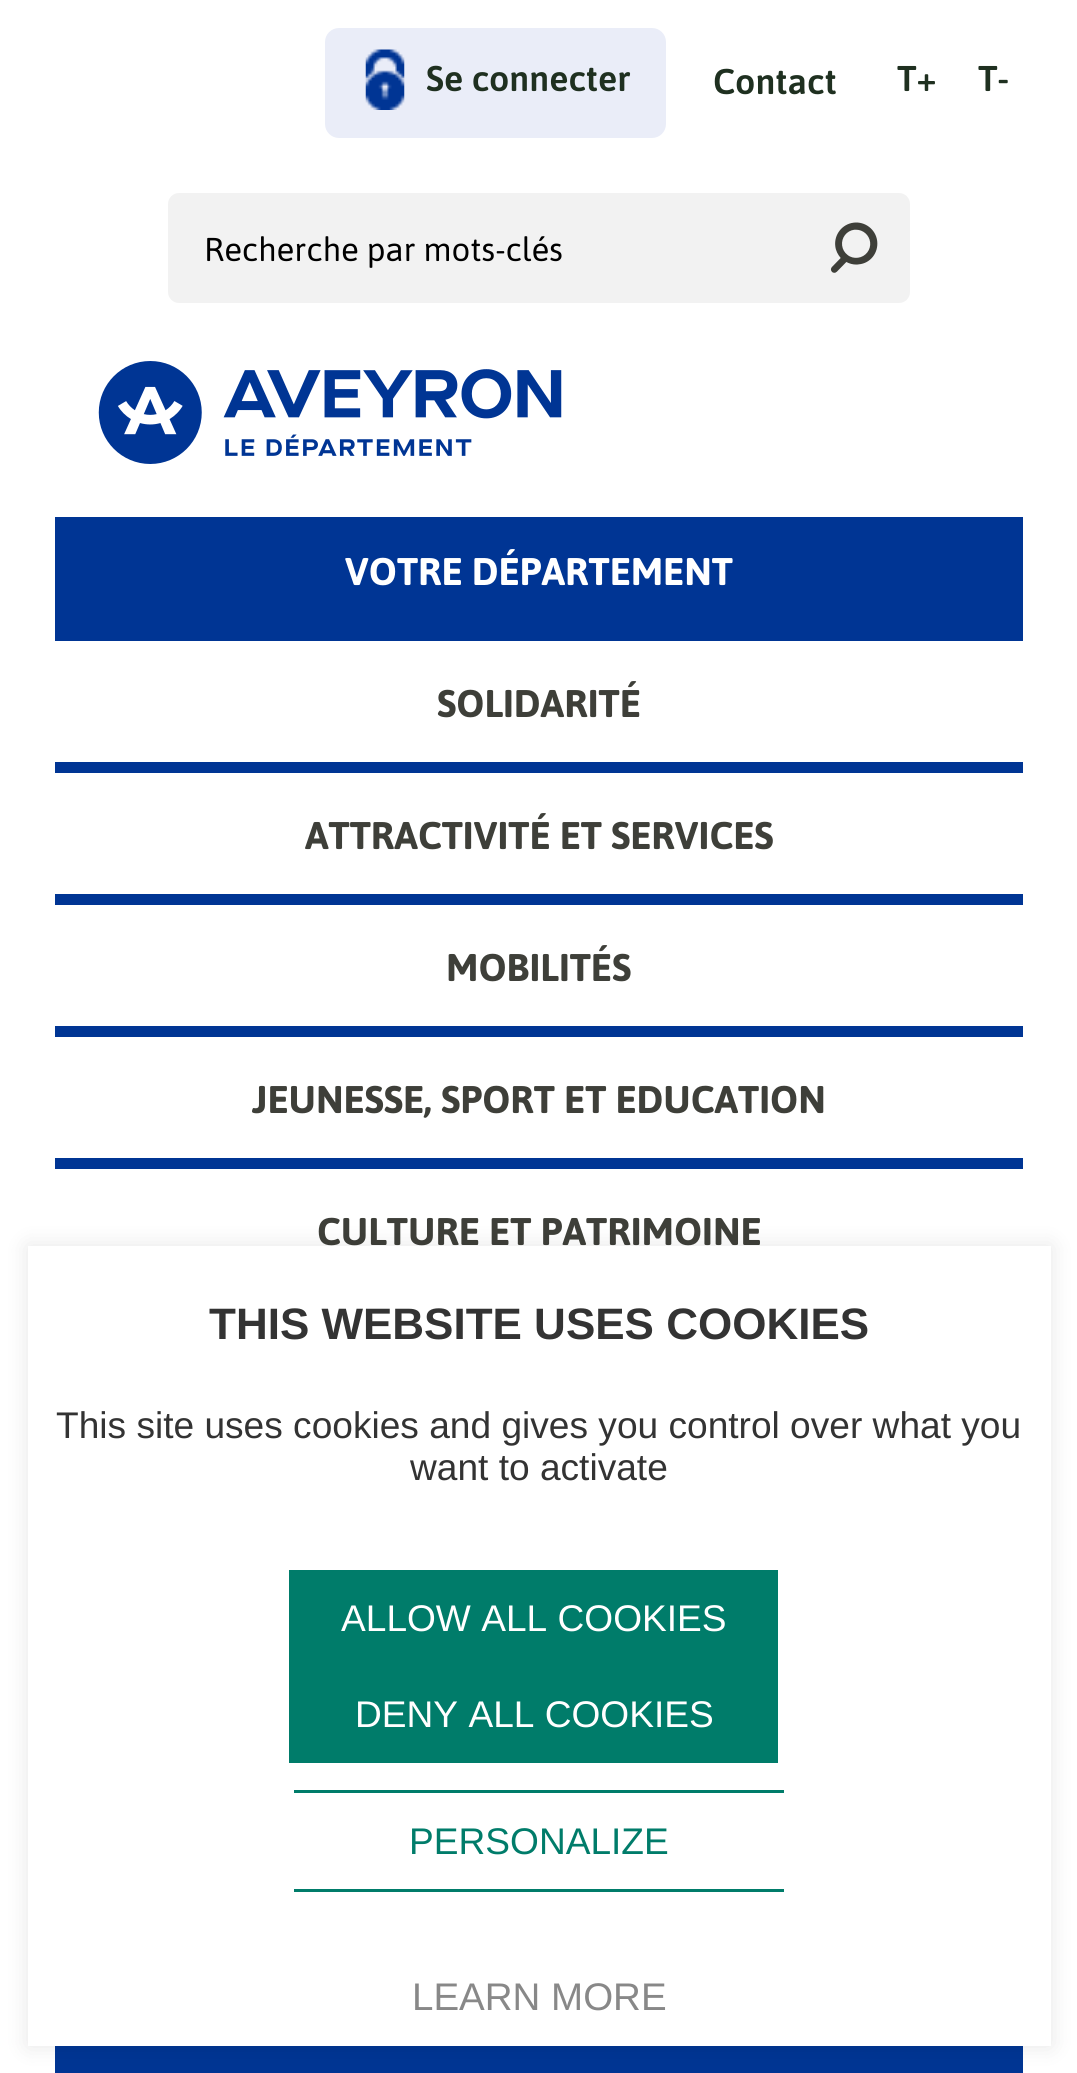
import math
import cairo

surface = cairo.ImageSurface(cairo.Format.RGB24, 1077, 2073)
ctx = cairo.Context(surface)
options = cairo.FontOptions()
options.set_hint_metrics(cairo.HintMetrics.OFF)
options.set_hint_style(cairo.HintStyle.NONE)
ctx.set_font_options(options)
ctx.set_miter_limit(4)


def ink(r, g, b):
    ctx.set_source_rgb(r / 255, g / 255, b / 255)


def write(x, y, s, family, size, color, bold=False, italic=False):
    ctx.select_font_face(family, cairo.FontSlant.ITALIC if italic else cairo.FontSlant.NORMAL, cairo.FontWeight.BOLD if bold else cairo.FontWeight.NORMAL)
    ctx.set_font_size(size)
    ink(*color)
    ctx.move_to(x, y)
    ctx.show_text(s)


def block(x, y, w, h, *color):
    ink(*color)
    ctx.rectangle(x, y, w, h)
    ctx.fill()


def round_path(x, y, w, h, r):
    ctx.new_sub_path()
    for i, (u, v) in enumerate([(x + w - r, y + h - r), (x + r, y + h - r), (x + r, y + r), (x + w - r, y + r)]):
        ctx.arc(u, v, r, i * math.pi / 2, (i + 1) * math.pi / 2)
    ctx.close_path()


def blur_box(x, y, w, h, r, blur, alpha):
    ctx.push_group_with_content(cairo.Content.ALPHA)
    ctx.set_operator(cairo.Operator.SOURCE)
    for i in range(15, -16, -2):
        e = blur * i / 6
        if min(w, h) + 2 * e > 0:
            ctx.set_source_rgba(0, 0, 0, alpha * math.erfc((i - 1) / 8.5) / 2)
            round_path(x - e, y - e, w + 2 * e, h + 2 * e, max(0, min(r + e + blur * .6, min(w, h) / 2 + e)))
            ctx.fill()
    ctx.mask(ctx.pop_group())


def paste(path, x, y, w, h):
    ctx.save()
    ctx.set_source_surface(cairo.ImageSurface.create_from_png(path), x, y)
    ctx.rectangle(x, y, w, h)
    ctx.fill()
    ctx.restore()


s1 = dict(family="Asap SemiBold", size=35.75, color=(31, 48, 32))
s2 = dict(family="Asap", size=33, color=(0, 0, 0))
s3 = dict(family="Asap", size=38.5, color=(255, 255, 255), bold=True)
s4 = dict(family="Asap", size=38.5, color=(62, 63, 57), bold=True)
s5 = dict(family="Liberation Sans", size=44, color=(51, 51, 51), bold=True)
s6 = dict(family="Liberation Sans", size=37.1, color=(51, 51, 51))
s7 = dict(family="Liberation Sans", size=37.1, color=(255, 255, 255))
s8 = dict(family="Liberation Sans", size=37.1, color=(0, 124, 106))
s9 = dict(family="Liberation Sans", size=38.5, color=(136, 136, 136))

ink(255, 255, 255)
ctx.paint()
ink(234, 237, 248)
round_path(325, 28, 341, 110, 14)
ctx.fill()
paste("pic1.png", 365, 49, 40, 61)
write(426, 91, "Se connecter", **s1)
write(713, 94, "Contact", **s1)
write(897, 91, "T+", **s1)
write(978, 91, "T-", **s1)
ink(242, 242, 242)
round_path(168, 193, 742, 110, 11)
ctx.fill()
write(204, 261, "Recherche par mots-clés", **s2)
paste("pic2.png", 830, 222, 48, 51)
paste("pic3.png", 98, 361, 464, 103)
block(55, 517, 968, 124, 0, 53, 148)
write(345, 585, "VOTRE DÉPARTEMENT", **s3)
block(55, 762, 968, 11, 0, 53, 148)
write(437, 717, "SOLIDARITÉ", **s4)
block(55, 894, 968, 11, 0, 53, 148)
write(305, 849, "ATTRACTIVITÉ ET SERVICES", **s4)
block(55, 1026, 968, 11, 0, 53, 148)
write(446, 981, "MOBILITÉS", **s4)
block(55, 1158, 968, 11, 0, 53, 148)
write(252, 1113, "JEUNESSE, SPORT ET EDUCATION", **s4)
write(317, 1245, "CULTURE ET PATRIMOINE", **s4)
block(55, 2046, 968, 27, 0, 53, 147)
ink(0, 0, 0)
blur_box(28, 1246, 1023, 800, 0, 11, 0.1)
block(28, 1246, 1023, 800, 255, 255, 255)
write(209, 1339, "THIS WEBSITE USES COOKIES", **s5)
write(56, 1438, "This site uses cookies and gives you control over what you", **s6)
write(410, 1480, "want to activate", **s6)
block(289, 1570, 489, 193, 0, 124, 106)
write(341, 1631, "ALLOW ALL COOKIES", **s7)
write(355, 1727, "DENY ALL COOKIES", **s7)
block(294, 1790, 490, 3, 0, 124, 106)
block(294, 1889, 490, 3, 0, 124, 106)
write(409, 1854, "PERSONALIZE", **s8)
write(412, 2010, "LEARN MORE", **s9)
surface.write_to_png("screenshot.png")
